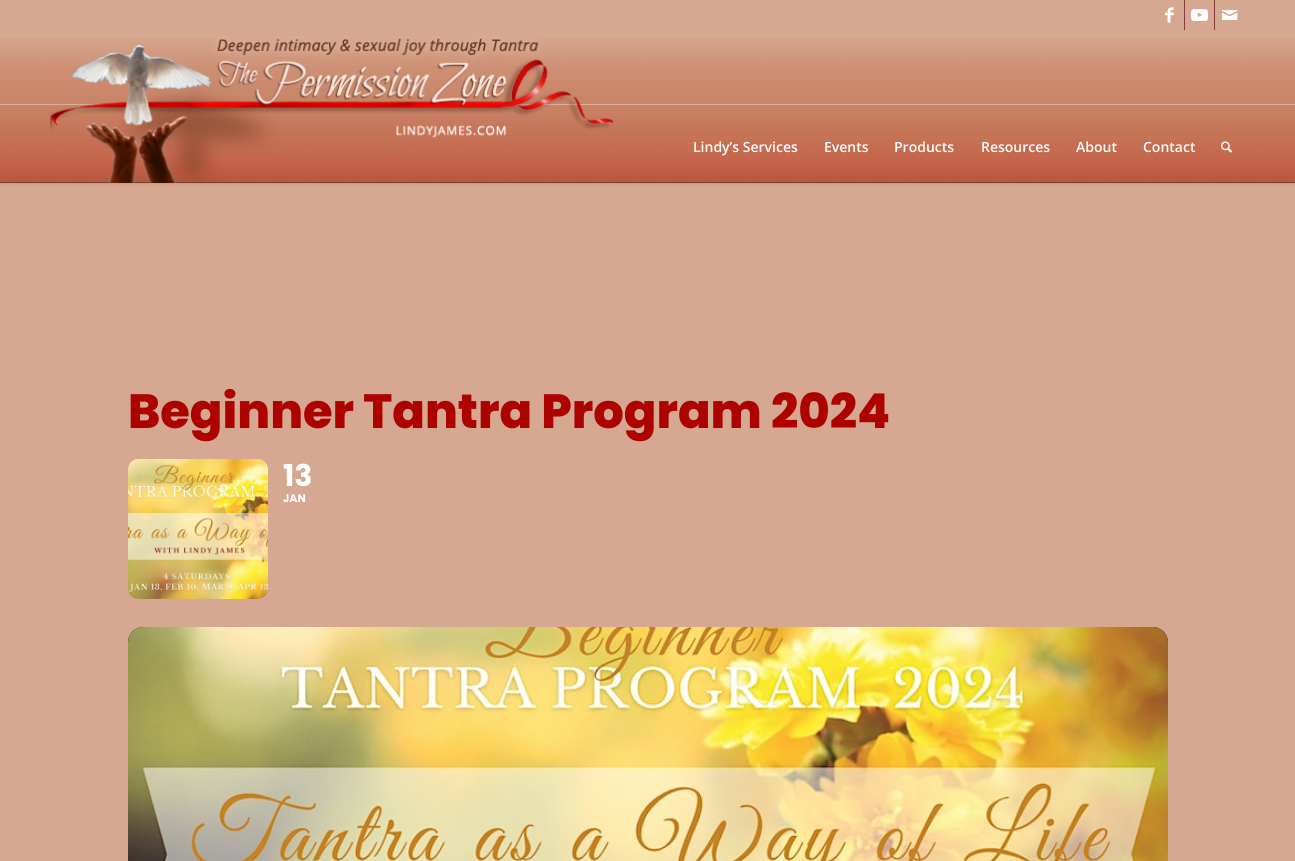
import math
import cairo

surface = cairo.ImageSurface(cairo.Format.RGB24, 1295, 861)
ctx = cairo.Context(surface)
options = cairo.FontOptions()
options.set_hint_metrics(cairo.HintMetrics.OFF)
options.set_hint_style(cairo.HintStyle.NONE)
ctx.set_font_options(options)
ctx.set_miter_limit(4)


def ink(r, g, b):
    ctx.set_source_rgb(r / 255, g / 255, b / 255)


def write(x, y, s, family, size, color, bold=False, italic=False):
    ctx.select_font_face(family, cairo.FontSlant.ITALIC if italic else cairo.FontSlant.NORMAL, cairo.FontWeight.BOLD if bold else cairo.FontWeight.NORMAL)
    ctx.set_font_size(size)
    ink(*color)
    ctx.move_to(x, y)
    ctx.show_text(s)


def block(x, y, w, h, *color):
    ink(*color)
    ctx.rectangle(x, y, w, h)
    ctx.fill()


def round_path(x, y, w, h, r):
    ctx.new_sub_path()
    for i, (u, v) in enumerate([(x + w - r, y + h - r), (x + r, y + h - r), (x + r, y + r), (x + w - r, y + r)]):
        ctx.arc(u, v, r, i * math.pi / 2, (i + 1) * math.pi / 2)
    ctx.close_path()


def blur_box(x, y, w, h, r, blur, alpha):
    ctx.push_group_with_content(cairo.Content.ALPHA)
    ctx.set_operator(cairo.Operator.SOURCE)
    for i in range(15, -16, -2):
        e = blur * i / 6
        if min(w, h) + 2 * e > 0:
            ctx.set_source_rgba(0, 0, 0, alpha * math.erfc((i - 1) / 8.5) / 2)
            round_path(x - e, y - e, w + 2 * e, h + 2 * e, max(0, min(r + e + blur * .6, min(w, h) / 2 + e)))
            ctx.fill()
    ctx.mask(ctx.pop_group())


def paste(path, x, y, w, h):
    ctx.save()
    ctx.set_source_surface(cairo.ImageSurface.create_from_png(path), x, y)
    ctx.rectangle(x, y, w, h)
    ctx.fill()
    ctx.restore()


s1 = dict(family="Open Sans SemiBold", size=14, color=(255, 255, 255))
s2 = dict(family="Poppins ExtraBold", size=48, color=(173, 3, 0))
s3 = dict(family="Poppins", size=30, color=(255, 255, 255), bold=True)
s4 = dict(family="Poppins", size=11, color=(255, 255, 255), bold=True)

ink(215, 168, 145)
ctx.paint()
ctx.save()
ctx.rectangle(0, 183, 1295, 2)
ctx.clip()
ink(0, 0, 0)
blur_box(-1, -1, 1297, 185, 0, 1, 0.1)
ctx.restore()
block(1184, 0, 1, 30, 133, 60, 60)
paste("pic1.png", 1165, 7, 9, 16)
block(1214, 0, 1, 30, 133, 60, 60)
paste("pic2.png", 1191, 9, 17, 12)
paste("pic3.png", 1222, 10, 16, 10)
paste("pic4.png", 0, 38, 1295, 145)
paste("pic5.png", 50, 36, 565, 147)
write(693, 152, "Lindy’s Services", **s1)
write(824, 152, "Events", **s1)
write(894, 152, "Products", **s1)
write(981, 152, "Resources", **s1)
write(1076, 152, "About", **s1)
write(1143, 152, "Contact", **s1)
paste("pic6.png", 1221, 141, 11, 12)
write(128, 428, "Beginner Tantra Program 2024", **s2)
paste("pic7.png", 128, 459, 140, 140)
write(283, 486, "13", **s3)
write(283, 502, "JAN", **s4)
ink(51, 51, 51)
round_path(128, 627, 1040, 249, 15)
ctx.fill()
paste("pic8.png", 128, 627, 1040, 234)
surface.write_to_png("screenshot.png")
